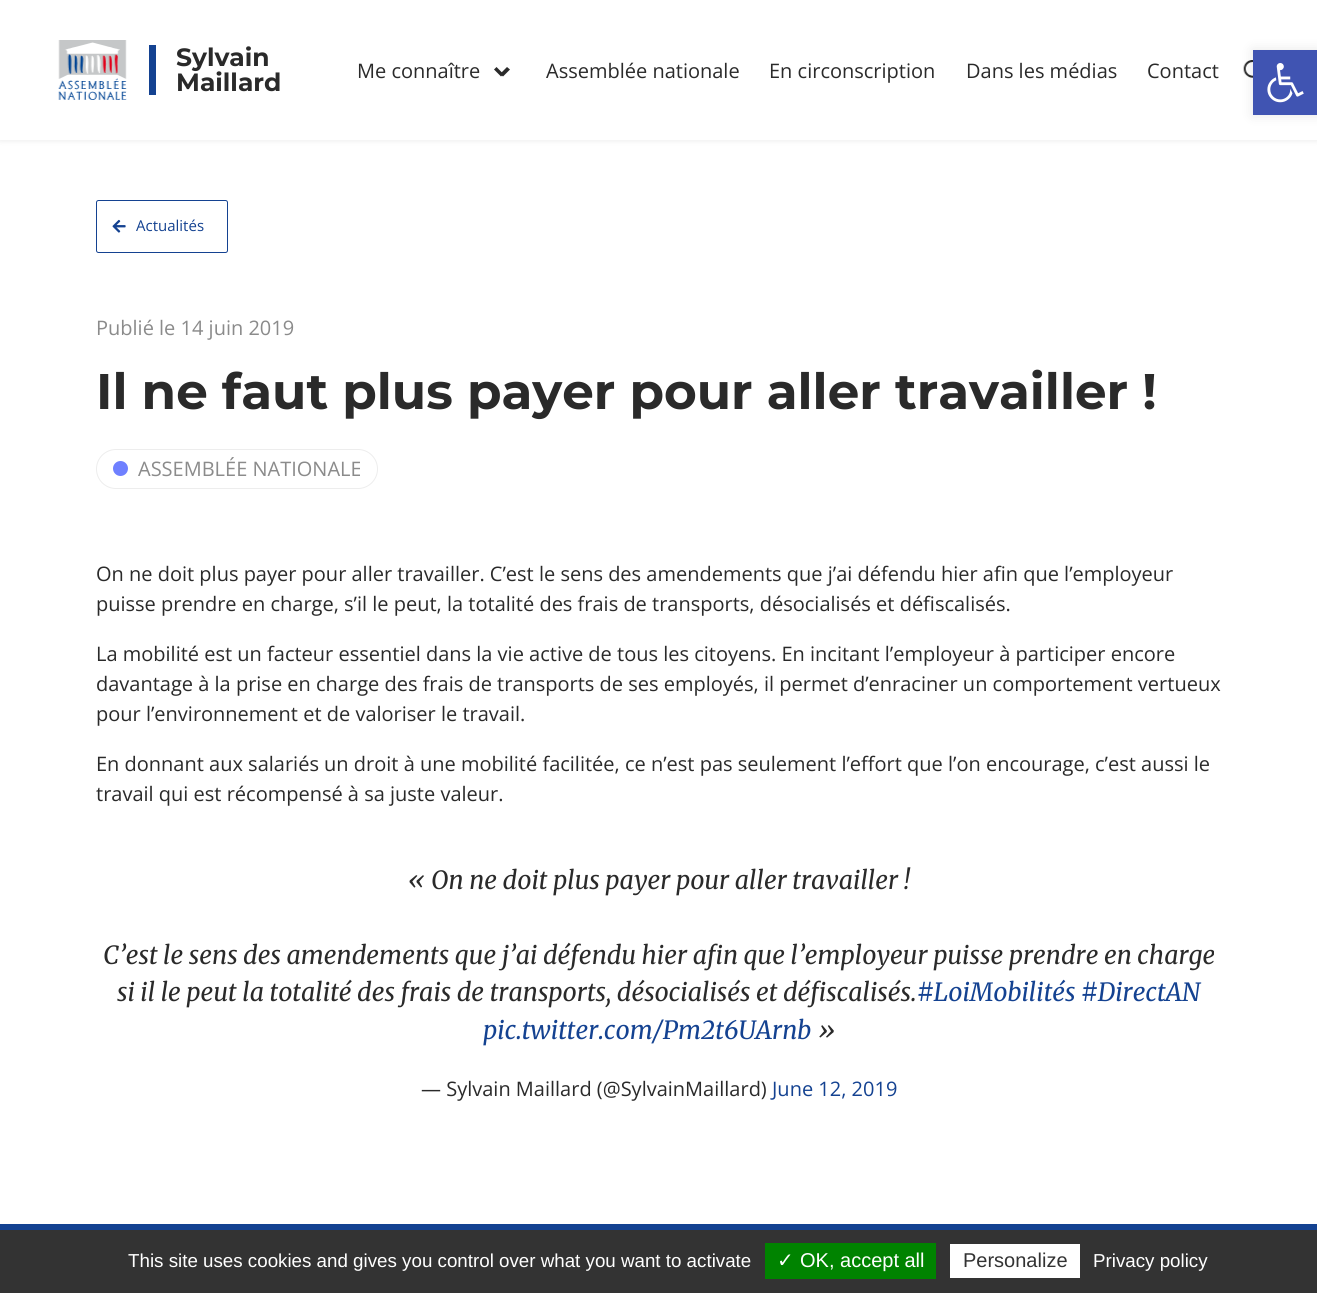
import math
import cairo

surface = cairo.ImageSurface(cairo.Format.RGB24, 1317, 1293)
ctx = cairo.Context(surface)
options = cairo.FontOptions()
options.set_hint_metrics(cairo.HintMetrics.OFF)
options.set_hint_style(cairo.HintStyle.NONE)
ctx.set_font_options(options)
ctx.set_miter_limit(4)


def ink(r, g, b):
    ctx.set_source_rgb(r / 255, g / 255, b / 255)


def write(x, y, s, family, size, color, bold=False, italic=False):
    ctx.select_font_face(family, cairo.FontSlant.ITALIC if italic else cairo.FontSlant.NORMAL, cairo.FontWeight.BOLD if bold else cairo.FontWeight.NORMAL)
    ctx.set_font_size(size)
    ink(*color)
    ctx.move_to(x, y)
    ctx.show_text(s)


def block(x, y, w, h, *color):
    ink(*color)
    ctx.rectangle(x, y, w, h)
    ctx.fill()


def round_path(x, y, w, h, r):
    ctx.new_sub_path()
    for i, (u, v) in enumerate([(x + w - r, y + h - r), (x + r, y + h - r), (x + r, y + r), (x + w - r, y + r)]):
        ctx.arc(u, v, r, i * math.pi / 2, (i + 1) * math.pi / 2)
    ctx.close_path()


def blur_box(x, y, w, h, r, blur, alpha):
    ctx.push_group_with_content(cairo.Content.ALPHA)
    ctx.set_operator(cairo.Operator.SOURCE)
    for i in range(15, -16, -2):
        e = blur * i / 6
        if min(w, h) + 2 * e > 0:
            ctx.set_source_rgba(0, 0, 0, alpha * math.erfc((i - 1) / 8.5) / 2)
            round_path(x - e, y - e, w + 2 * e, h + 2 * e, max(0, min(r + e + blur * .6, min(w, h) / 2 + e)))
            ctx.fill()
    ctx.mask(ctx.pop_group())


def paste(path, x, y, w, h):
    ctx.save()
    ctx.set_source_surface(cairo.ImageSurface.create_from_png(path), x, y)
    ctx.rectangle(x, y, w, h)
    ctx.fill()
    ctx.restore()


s1 = dict(family="Montserrat", size=25, color=(42, 42, 42), bold=True)
s2 = dict(family="Open Sans", size=20, color=(42, 42, 42))
s3 = dict(family="Open Sans", size=15, color=(20, 66, 145))
s4 = dict(family="Open Sans", size=20, color=(139, 139, 139))
s5 = dict(family="Montserrat", size=50, color=(42, 42, 42), bold=True)
s6 = dict(family="Merriweather Light", size=25, color=(42, 42, 42), italic=True)
s7 = dict(family="Merriweather Light", size=25, color=(20, 66, 145), italic=True)
s8 = dict(family="Open Sans", size=20, color=(20, 66, 145))
s9 = dict(family="Liberation Sans", size=18.75, color=(255, 255, 255))
s10 = dict(family="DejaVu Sans", size=20, color=(255, 255, 255))
s11 = dict(family="Liberation Sans", size=20, color=(255, 255, 255))
s12 = dict(family="Liberation Sans", size=20, color=(51, 51, 51))

ink(255, 255, 255)
ctx.paint()
ink(0, 0, 0)
blur_box(0, 0, 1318, 140, 0, 3, 0.1)
block(0, 0, 1317, 140, 255, 255, 255)
paste("pic1.png", 58, 40, 69, 60)
block(149, 45, 7, 50, 20, 66, 145)
write(176, 66, "Sylvain", **s1)
write(176, 91, "Maillard", **s1)
write(357, 78, "Me connaître", **s2)
ctx.new_path()
ctx.move_to(500, 74)
ctx.line_to(507, 67)
ctx.line_to(510, 69.5)
ctx.line_to(503, 76.5)
ctx.close_path()
ctx.fill()
ctx.new_path()
ctx.move_to(494, 69.5)
ctx.line_to(496.5, 67)
ctx.line_to(503.5, 74)
ctx.line_to(501, 76.5)
ctx.close_path()
ctx.fill()
write(546, 78, "Assemblée nationale", **s2)
write(769, 78, "En circonscription", **s2)
write(966, 78, "Dans les médias", **s2)
write(1147, 78, "Contact", **s2)
paste("pic2.png", 1243, 60, 10, 18)
ink(0, 0, 0)
blur_box(1253, 50, 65, 65, 0, 6, 0.1)
block(1253, 50, 64, 65, 64, 84, 178)
paste("pic3.png", 1267, 63, 37, 40)
round_path(96.5, 200.5, 131, 52, 2)
ink(20, 66, 145)
ctx.set_line_width(1)
ctx.stroke()
paste("pic4.png", 112, 219, 14, 14)
write(136, 231, "Actualités", **s3)
write(96, 335, "Publié le 14 juin 2019", **s4)
write(96, 409, "Il ne faut plus payer pour aller travailler !", **s5)
round_path(96.5, 449.5, 281, 39, 19.5)
ink(237, 237, 237)
ctx.stroke()
ink(111, 128, 255)
ctx.arc(120.5, 468.5, 7.5, 0, 2 * math.pi)
ctx.fill()
write(138, 476, "ASSEMBLÉE NATIONALE", **s4)
write(96, 581, "On ne doit plus payer pour aller travailler. C’est le sens des amendements que j’ai défendu hier afin que l’employeur", **s2)
write(96, 611, "puisse prendre en charge, s’il le peut, la totalité des frais de transports, désocialisés et défiscalisés.", **s2)
write(96, 661, "La mobilité est un facteur essentiel dans la vie active de tous les citoyens. En incitant l’employeur à participer encore", **s2)
write(96, 691, "davantage à la prise en charge des frais de transports de ses employés, il permet d’enraciner un comportement vertueux", **s2)
write(96, 721, "pour l’environnement et de valoriser le travail.", **s2)
write(96, 771, "En donnant aux salariés un droit à une mobilité facilitée, ce n’est pas seulement l’effort que l’on encourage, c’est aussi le", **s2)
write(96, 801, "travail qui est récompensé à sa juste valeur.", **s2)
write(408, 889, "«", **s6)
write(431, 889, "On ne doit plus payer pour aller travailler !", **s6)
write(103, 964, "C’est le sens des amendements que j’ai défendu hier afin que l’employeur puisse prendre en charge", **s6)
write(117, 1001, "si il le peut la totalité des frais de transports, désocialisés et défiscalisés.", **s6)
write(917, 1001, "#LoiMobilités #DirectAN", **s7)
write(483, 1039, "pic.twitter.com/Pm2t6UArnb", **s7)
write(818, 1039, "»", **s6)
write(421, 1096, "— Sylvain Maillard (@SylvainMaillard)", **s2)
write(772, 1096, "June 12, 2019", **s8)
block(0, 1224, 1317, 6, 20, 66, 145)
block(0, 1230, 1317, 63, 51, 51, 51)
write(128, 1267, "This site uses cookies and gives you control over what you want to activate", **s9)
block(765, 1243, 171, 36, 0, 131, 0)
write(777, 1267, "✓", **s10)
write(800, 1267, "OK, accept all", **s11)
block(950, 1244, 130, 34, 255, 255, 255)
write(963, 1267, "Personalize", **s12)
write(1093, 1267, "Privacy policy", **s9)
surface.write_to_png("screenshot.png")
